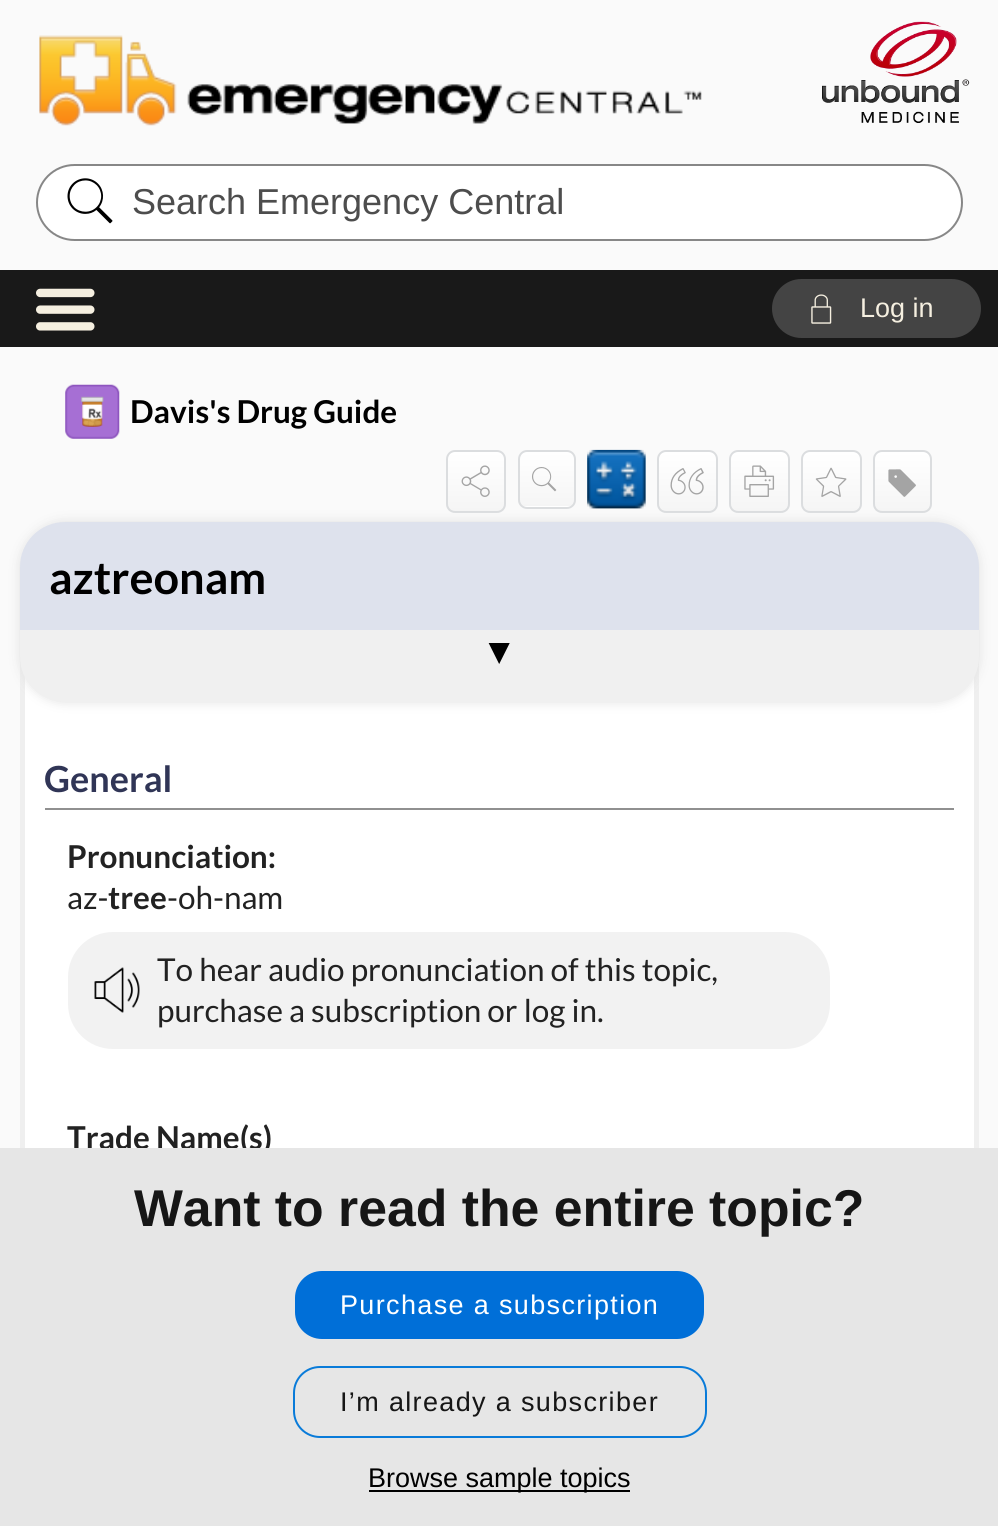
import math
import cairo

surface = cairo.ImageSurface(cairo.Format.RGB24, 998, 1526)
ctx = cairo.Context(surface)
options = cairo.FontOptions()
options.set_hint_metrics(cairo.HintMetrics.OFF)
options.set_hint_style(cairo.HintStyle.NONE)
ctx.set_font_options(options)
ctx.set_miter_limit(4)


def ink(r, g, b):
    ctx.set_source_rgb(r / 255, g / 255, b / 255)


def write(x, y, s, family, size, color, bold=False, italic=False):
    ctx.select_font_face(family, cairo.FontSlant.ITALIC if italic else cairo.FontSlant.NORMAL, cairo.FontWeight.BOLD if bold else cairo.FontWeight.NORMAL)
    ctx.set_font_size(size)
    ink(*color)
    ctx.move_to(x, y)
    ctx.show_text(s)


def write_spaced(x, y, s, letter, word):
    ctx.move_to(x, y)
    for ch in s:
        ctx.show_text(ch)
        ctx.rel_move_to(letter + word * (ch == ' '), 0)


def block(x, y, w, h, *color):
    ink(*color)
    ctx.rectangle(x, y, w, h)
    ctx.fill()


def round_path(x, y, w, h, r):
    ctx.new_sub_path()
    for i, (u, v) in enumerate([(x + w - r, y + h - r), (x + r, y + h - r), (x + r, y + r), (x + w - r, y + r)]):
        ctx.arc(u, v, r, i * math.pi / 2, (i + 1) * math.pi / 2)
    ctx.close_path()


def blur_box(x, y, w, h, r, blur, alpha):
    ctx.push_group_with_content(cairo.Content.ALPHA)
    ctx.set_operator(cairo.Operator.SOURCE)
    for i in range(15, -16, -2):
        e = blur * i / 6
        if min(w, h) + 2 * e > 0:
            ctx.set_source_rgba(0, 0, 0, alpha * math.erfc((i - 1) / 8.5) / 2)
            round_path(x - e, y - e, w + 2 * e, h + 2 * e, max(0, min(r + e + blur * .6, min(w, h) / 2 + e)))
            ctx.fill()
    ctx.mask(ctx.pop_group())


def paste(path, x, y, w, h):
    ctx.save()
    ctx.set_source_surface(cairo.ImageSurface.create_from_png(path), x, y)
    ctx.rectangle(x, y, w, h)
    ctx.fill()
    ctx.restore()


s1 = dict(family="Liberation Sans", size=36, color=(77, 77, 77))
s2 = dict(family="Liberation Sans", size=27, color=(245, 239, 224))
s3 = dict(family="Lato", size=31.5, color=(0, 0, 0), bold=True)
s4 = dict(family="Lato", size=36, color=(48, 53, 86), bold=True)
s5 = dict(family="Lato", size=31.5, color=(34, 34, 34), bold=True)
s6 = dict(family="Lato", size=31.5, color=(34, 34, 34))
s7 = dict(family="Lato", size=45, color=(0, 0, 0), bold=True)
s8 = dict(family="Liberation Serif", size=36, color=(0, 0, 0))
s9 = dict(family="Liberation Sans", size=51.75, color=(22, 22, 22), bold=True)
s10 = dict(family="Liberation Sans", size=27, color=(0, 0, 0))

ink(250, 250, 250)
ctx.paint()
paste("pic1.png", 39, 35, 663, 91)
paste("pic2.png", 822, 21, 148, 102)
ink(255, 255, 255)
round_path(37, 165, 925, 75, 37.5)
ctx.fill_preserve()
ink(135, 135, 135)
ctx.stroke()
paste("pic3.png", 67, 178, 46, 46)
write(132, 214, "Search Emergency Central", **s1)
block(0, 270, 998, 77, 25, 25, 25)
paste("pic4.png", 36, 288, 59, 43)
ink(68, 68, 68)
round_path(772, 279, 209, 59, 29.5)
ctx.fill()
paste("pic5.png", 811, 294, 21, 30)
write(860, 317, "Log in", **s2)
paste("pic6.png", 65, 384, 55, 55)
write(130, 423, "Davis's Drug Guide", **s3)
ctx.save()
round_path(446, 450, 60, 63, 9)
ctx.clip()
gradient = cairo.LinearGradient(476, 452, 476, 511)
gradient.add_color_stop_rgba(0, 1, 1, 1, 1)
gradient.add_color_stop_rgba(1, 0.961, 0.961, 0.961, 1)
ctx.set_source(gradient)
ctx.rectangle(446, 452, 60, 59)
ctx.fill()
ctx.restore()
round_path(447, 451, 58, 61, 8)
ink(219, 221, 223)
ctx.stroke()
paste("pic7.png", 461, 465, 29, 32)
ctx.save()
round_path(518, 450, 58, 59, 9)
ctx.clip()
gradient = cairo.LinearGradient(547, 452, 547, 506)
gradient.add_color_stop_rgba(0, 1, 1, 1, 1)
gradient.add_color_stop_rgba(1, 0.961, 0.961, 0.961, 1)
ctx.set_source(gradient)
ctx.rectangle(518, 452, 58, 54)
ctx.fill()
gradient = cairo.LinearGradient(547, 506, 547, 560)
gradient.add_color_stop_rgba(0, 1, 1, 1, 1)
gradient.add_color_stop_rgba(1, 0.961, 0.961, 0.961, 1)
ctx.set_source(gradient)
ctx.rectangle(518, 506, 58, 3)
ctx.fill()
ctx.restore()
round_path(519, 451, 56, 57, 8)
ctx.stroke()
paste("pic8.png", 532, 467, 25, 25)
paste("pic9.png", 587, 449, 59, 60)
ctx.save()
round_path(657, 450, 61, 63, 9)
ctx.clip()
gradient = cairo.LinearGradient(687, 452, 687, 511)
gradient.add_color_stop_rgba(0, 1, 1, 1, 1)
gradient.add_color_stop_rgba(1, 0.961, 0.961, 0.961, 1)
ctx.set_source(gradient)
ctx.rectangle(657, 452, 61, 59)
ctx.fill()
ctx.restore()
round_path(658, 451, 59, 61, 8)
ctx.stroke()
paste("pic10.png", 670, 468, 34, 27)
ctx.save()
round_path(729, 450, 61, 63, 9)
ctx.clip()
gradient = cairo.LinearGradient(759, 452, 759, 511)
gradient.add_color_stop_rgba(0, 1, 1, 1, 1)
gradient.add_color_stop_rgba(1, 0.961, 0.961, 0.961, 1)
ctx.set_source(gradient)
ctx.rectangle(729, 452, 61, 59)
ctx.fill()
ctx.restore()
round_path(730, 451, 59, 61, 8)
ctx.stroke()
paste("pic11.png", 744, 465, 31, 32)
ctx.save()
round_path(801, 450, 61, 63, 9)
ctx.clip()
gradient = cairo.LinearGradient(831, 452, 831, 511)
gradient.add_color_stop_rgba(0, 1, 1, 1, 1)
gradient.add_color_stop_rgba(1, 0.961, 0.961, 0.961, 1)
ctx.set_source(gradient)
ctx.rectangle(801, 452, 61, 59)
ctx.fill()
ctx.restore()
round_path(802, 451, 59, 61, 8)
ctx.stroke()
paste("pic12.png", 815, 467, 32, 30)
ctx.save()
round_path(873, 450, 59, 63, 9)
ctx.clip()
gradient = cairo.LinearGradient(902, 452, 902, 511)
gradient.add_color_stop_rgba(0, 1, 1, 1, 1)
gradient.add_color_stop_rgba(1, 0.961, 0.961, 0.961, 1)
ctx.set_source(gradient)
ctx.rectangle(873, 452, 59, 59)
ctx.fill()
ctx.restore()
round_path(874, 451, 57, 61, 8)
ctx.stroke()
paste("pic13.png", 888, 469, 28, 28)
block(25, 677, 949, 471, 255, 255, 255)
ink(239, 239, 239)
ctx.set_fill_rule(cairo.FillRule.EVEN_ODD)
ctx.new_path()
ctx.move_to(20, 639)
ctx.line_to(979, 639)
ctx.line_to(979, 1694)
ctx.curve_to(979, 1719, 959, 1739, 934, 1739)
ctx.line_to(65, 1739)
ctx.curve_to(40, 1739, 20, 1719, 20, 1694)
ctx.close_path()
ctx.move_to(25, 639)
ctx.line_to(974, 639)
ctx.line_to(974, 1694)
ctx.curve_to(974, 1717, 956, 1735, 934, 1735)
ctx.line_to(65, 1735)
ctx.curve_to(43, 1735, 25, 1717, 25, 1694)
ctx.close_path()
ctx.fill()
block(45, 808, 909, 2, 144, 144, 144)
write(44, 792, "General", **s4)
write(67, 868, "Pronunciation:", **s5)
write(67, 909, "az-", **s6)
write(108, 909, "tree", **s5)
write(167, 909, "-oh-nam", **s6)
ink(242, 242, 242)
round_path(68, 932, 762, 117, 45)
ctx.fill()
paste("pic14.png", 94, 967, 46, 46)
write(157, 981, "To hear audio pronunciation of this topic,", **s6)
write(157, 1022, "purchase a subscription or log in.", **s6)
write(67, 1149, "Trade Name(s)", **s5)
ink(224, 224, 224)
blur_box(20, 522, 959, 180, 45, 5.5, 1)
ink(240, 240, 240)
round_path(20, 522, 959, 180, 45)
ctx.fill()
ink(222, 226, 237)
ctx.new_path()
ctx.move_to(65, 522)
ctx.line_to(934, 522)
ctx.curve_to(959, 522, 979, 542, 979, 567)
ctx.line_to(979, 630)
ctx.line_to(20, 630)
ctx.line_to(20, 567)
ctx.curve_to(20, 542, 40, 522, 65, 522)
ctx.close_path()
ctx.fill()
write(49, 594, "aztreonam", **s7)
ctx.save()
ctx.translate(517, 643)
ctx.rotate(180 * math.pi / 180)
write(0, 0, "▲", **s8)
ctx.restore()
block(0, 1148, 998, 378, 230, 230, 230)
write(134, 1226, "Want to read the entire topic?", **s9)
ink(0, 111, 216)
round_path(295, 1271, 409, 68, 27)
ctx.fill()
ctx.select_font_face("Liberation Sans")
ctx.set_font_size(27)
ink(255, 255, 255)
write_spaced(340, 1314, "Purchase a subscription", 1.35, 0)
round_path(294, 1367, 412, 70, 26)
ink(9, 123, 217)
ctx.stroke()
ink(22, 22, 22)
write_spaced(340, 1411, "I’m already a subscriber", 1.35, 0)
block(369, 1490, 261, 2, 0, 0, 0)
write(368, 1487, "Browse sample topics", **s10)
surface.write_to_png("screenshot.png")
